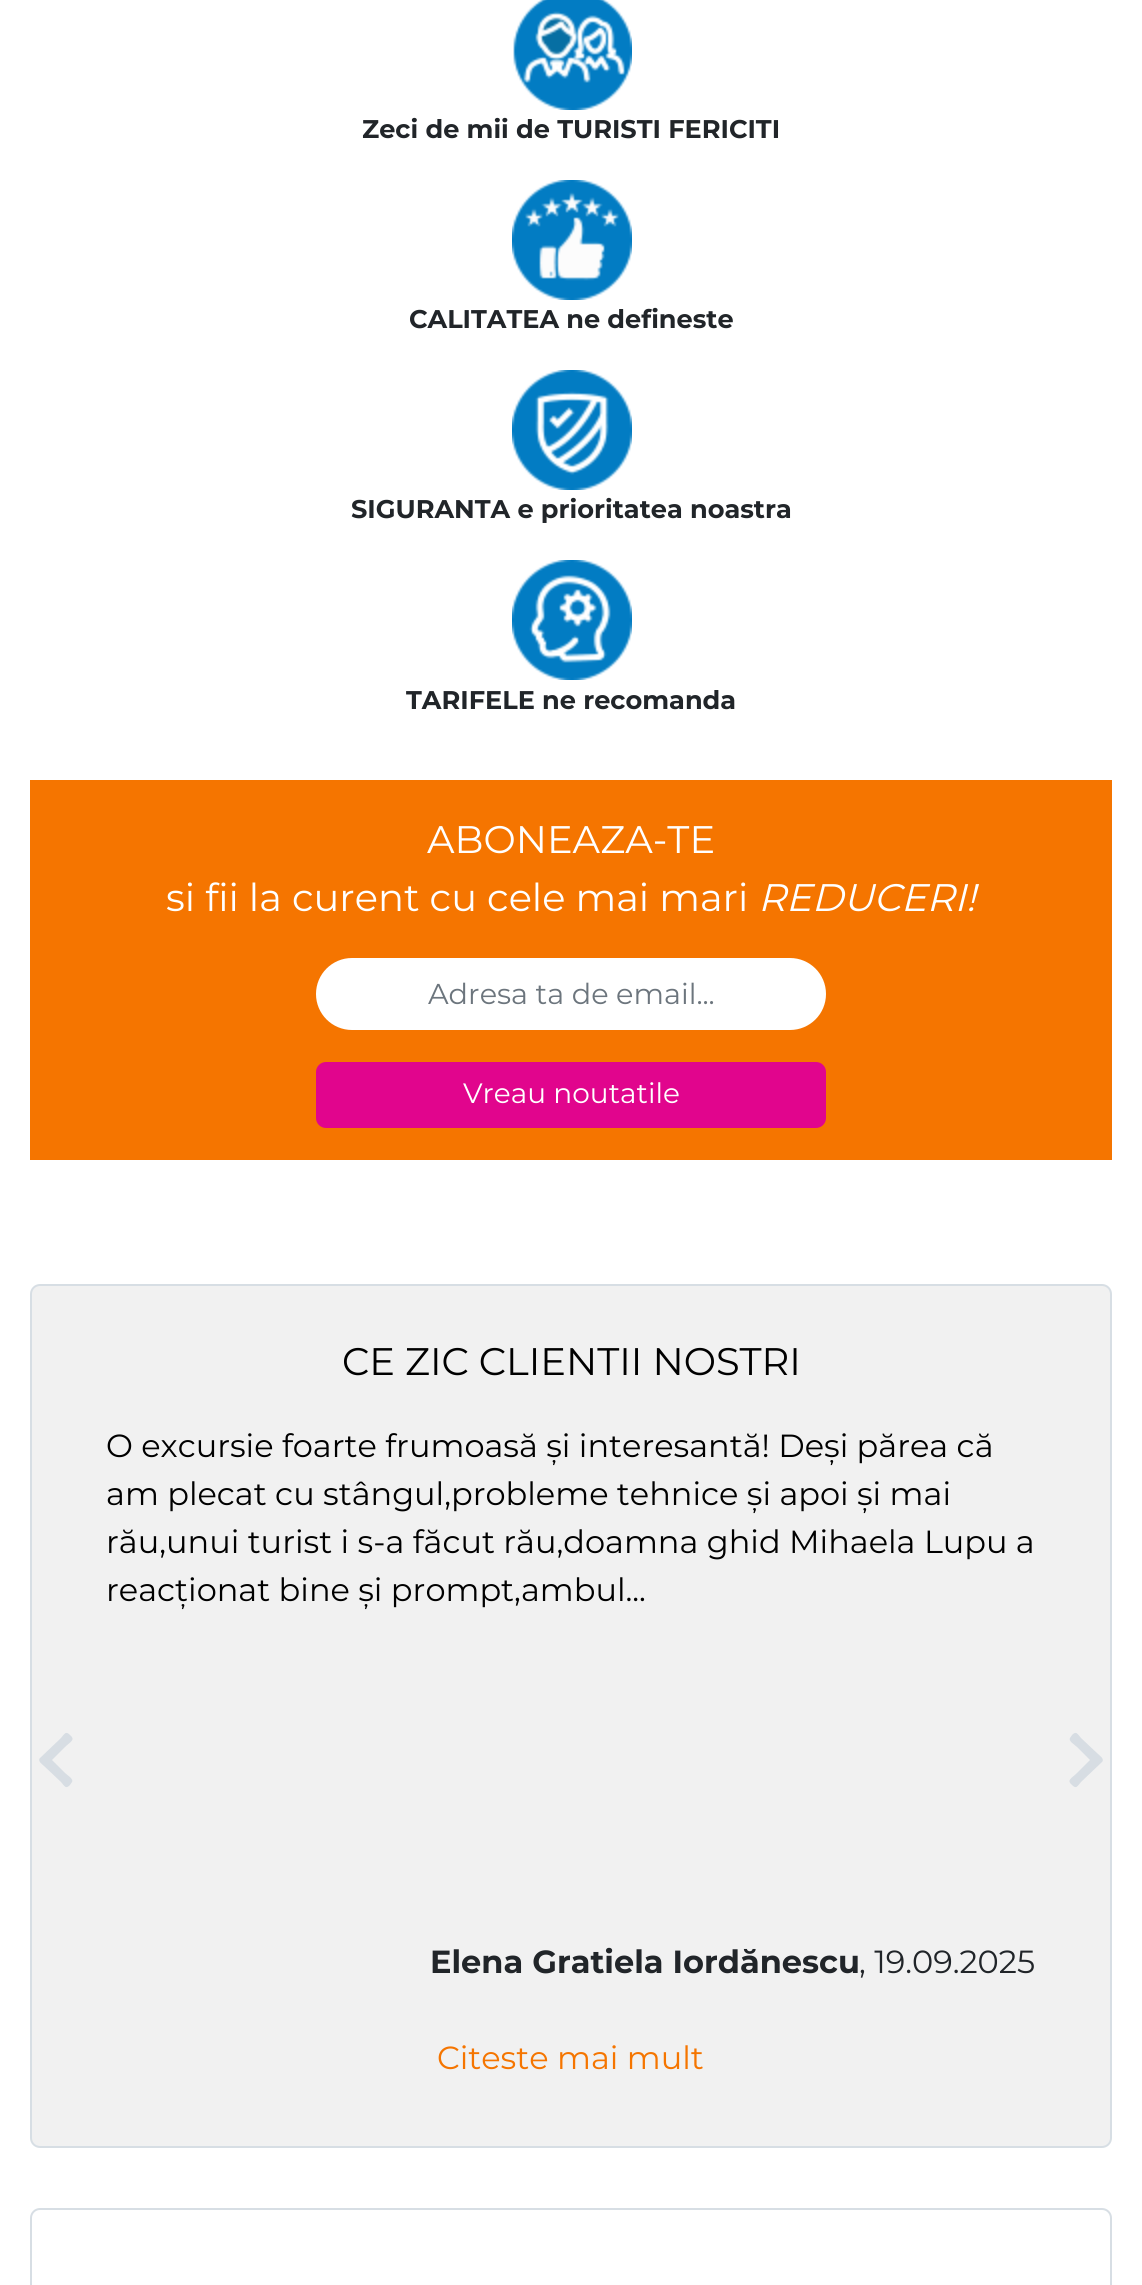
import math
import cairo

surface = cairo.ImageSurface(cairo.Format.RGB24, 1142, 2285)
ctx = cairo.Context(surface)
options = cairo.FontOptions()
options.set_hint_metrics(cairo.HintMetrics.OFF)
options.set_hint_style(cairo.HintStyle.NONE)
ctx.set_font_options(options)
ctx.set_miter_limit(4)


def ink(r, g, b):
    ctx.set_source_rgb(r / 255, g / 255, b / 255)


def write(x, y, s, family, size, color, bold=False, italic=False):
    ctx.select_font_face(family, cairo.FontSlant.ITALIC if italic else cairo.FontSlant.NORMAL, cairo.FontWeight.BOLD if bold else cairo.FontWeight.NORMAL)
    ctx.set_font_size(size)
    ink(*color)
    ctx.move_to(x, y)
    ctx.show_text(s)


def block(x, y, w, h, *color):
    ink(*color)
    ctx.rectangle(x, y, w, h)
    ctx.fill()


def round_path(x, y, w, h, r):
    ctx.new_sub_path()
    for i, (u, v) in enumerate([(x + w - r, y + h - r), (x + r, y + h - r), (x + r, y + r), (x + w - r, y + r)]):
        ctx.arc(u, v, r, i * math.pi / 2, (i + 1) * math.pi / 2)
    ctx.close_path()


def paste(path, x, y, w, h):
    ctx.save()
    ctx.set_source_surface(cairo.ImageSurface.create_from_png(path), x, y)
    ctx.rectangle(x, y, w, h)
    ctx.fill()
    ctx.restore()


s1 = dict(family="Montserrat", size=25.6, color=(33, 37, 41), bold=True)
s2 = dict(family="Montserrat", size=38.4, color=(255, 255, 255))
s3 = dict(family="Montserrat", size=38.4, color=(255, 255, 255), italic=True)
s4 = dict(family="Montserrat", size=28.75, color=(108, 117, 125))
s5 = dict(family="Montserrat", size=28, color=(255, 255, 255))
s6 = dict(family="Montserrat", size=38.4, color=(0, 0, 0))
s7 = dict(family="Montserrat", size=32, color=(0, 0, 0))
s8 = dict(family="Montserrat", size=32, color=(33, 37, 41), bold=True)
s9 = dict(family="Montserrat", size=32, color=(33, 37, 41))
s10 = dict(family="Montserrat", size=32, color=(245, 117, 0))

ink(255, 255, 255)
ctx.paint()
paste("pic1.png", 513, 0, 119, 110)
write(362, 138, "Zeci de mii de TURISTI FERICITI", **s1)
paste("pic2.png", 512, 180, 120, 120)
write(409, 328, "CALITATEA ne defineste", **s1)
paste("pic3.png", 512, 370, 120, 120)
write(351, 518, "SIGURANTA e prioritatea noastra", **s1)
paste("pic4.png", 512, 560, 120, 120)
write(406, 709, "TARIFELE ne recomanda", **s1)
block(30, 780, 1082, 380, 245, 117, 0)
write(427, 853, "ABONEAZA-TE", **s2)
write(166, 911, "si fii la curent cu cele mai mari", **s2)
write(758, 911, "REDUCERI!", **s3)
round_path(316, 958, 510, 72, 36)
ctx.fill()
write(428, 1004, "Adresa ta de email...", **s4)
ink(225, 5, 141)
round_path(316, 1062, 510, 66, 10)
ctx.fill()
write(463, 1103, "Vreau noutatile", **s5)
ink(241, 241, 241)
round_path(31, 1285, 1080, 862, 9)
ctx.fill_preserve()
ink(215, 222, 228)
ctx.stroke()
write(342, 1375, "CE ZIC CLIENTII NOSTRI", **s6)
write(106, 1457, "O excursie foarte frumoasă și interesantă! Deși părea că", **s7)
write(106, 1505, "am plecat cu stângul,probleme tehnice și apoi și mai", **s7)
write(106, 1553, "rău,unui turist i s-a făcut rău,doamna ghid Mihaela Lupu a", **s7)
write(106, 1601, "reacționat bine și prompt,ambul...", **s7)
write(430, 1973, "Elena Gratiela Iordănescu", **s8)
write(859, 1973, ", 19.09.2025", **s9)
write(437, 2069, "Citeste mai mult", **s10)
ink(215, 221, 227)
ctx.new_path()
ctx.move_to(40, 1758)
ctx.line_to(61, 1738)
ctx.curve_to(65, 1733, 66, 1731, 70, 1735)
ctx.curve_to(76, 1740, 70, 1742, 65, 1747)
ctx.line_to(52, 1760)
ctx.line_to(65, 1773)
ctx.curve_to(67, 1775, 74, 1779, 72, 1782)
ctx.line_to(70, 1785)
ctx.curve_to(66, 1789, 65, 1787, 61, 1782)
ctx.line_to(44, 1766)
ctx.curve_to(43, 1765, 37, 1761, 40, 1758)
ctx.close_path()
ctx.fill()
ctx.new_path()
ctx.move_to(1102, 1762)
ctx.line_to(1081, 1782)
ctx.curve_to(1077, 1787, 1076, 1789, 1072, 1785)
ctx.curve_to(1066, 1780, 1072, 1778, 1077, 1773)
ctx.line_to(1090, 1760)
ctx.line_to(1077, 1747)
ctx.curve_to(1075, 1745, 1068, 1741, 1070, 1738)
ctx.line_to(1072, 1735)
ctx.curve_to(1076, 1731, 1077, 1733, 1081, 1738)
ctx.line_to(1098, 1754)
ctx.curve_to(1099, 1755, 1105, 1759, 1102, 1762)
ctx.close_path()
ctx.fill()
round_path(31, 2209, 1080, 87, 9)
ink(215, 222, 228)
ctx.stroke()
surface.write_to_png("screenshot.png")
